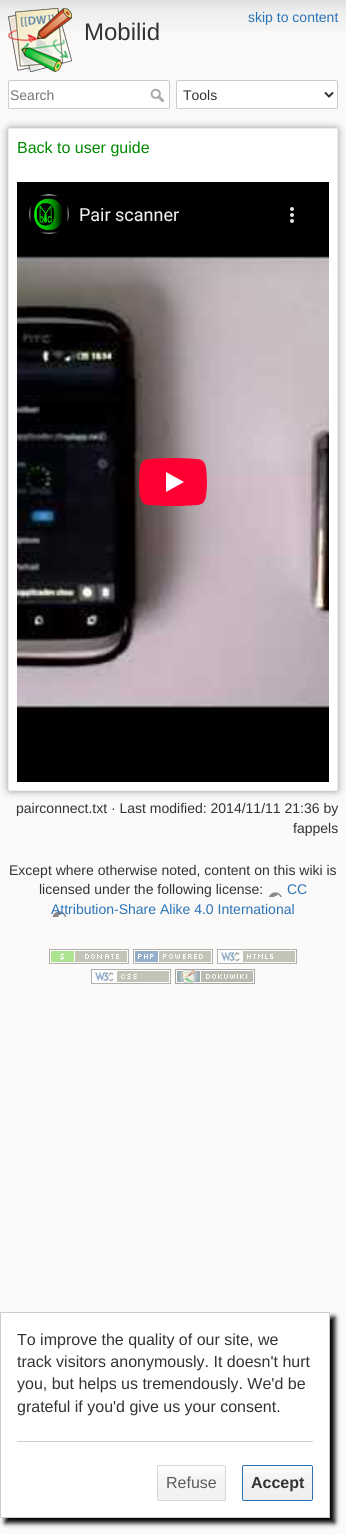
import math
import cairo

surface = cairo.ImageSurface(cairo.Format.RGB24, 346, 1534)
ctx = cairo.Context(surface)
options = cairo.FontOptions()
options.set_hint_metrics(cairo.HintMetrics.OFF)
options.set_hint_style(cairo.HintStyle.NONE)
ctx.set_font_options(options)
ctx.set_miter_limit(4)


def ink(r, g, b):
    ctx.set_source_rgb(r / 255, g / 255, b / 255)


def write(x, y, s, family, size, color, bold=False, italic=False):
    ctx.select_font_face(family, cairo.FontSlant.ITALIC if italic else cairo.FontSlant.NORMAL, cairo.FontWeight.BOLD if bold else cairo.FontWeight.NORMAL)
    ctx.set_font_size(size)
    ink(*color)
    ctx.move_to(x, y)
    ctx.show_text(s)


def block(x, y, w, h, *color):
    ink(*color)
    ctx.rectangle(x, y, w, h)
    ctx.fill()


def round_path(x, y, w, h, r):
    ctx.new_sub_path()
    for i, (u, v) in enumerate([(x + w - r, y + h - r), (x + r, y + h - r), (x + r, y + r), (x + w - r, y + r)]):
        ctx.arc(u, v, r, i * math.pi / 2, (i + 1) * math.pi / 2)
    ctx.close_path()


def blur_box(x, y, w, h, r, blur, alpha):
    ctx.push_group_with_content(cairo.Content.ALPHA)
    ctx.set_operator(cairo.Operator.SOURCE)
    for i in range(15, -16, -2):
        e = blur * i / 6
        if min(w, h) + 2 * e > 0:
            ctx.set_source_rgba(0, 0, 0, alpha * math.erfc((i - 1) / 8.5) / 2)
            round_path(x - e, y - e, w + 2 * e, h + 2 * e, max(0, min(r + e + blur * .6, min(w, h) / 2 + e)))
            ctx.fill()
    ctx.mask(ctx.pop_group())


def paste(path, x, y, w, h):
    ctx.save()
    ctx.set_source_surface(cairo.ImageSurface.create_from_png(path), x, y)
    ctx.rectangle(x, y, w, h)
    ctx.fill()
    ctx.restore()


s1 = dict(family="Liberation Sans", size=14, color=(43, 115, 183))
s2 = dict(family="Liberation Sans", size=24, color=(51, 51, 51))
s3 = dict(family="Liberation Sans", size=14, color=(117, 117, 117))
s4 = dict(family="Liberation Sans", size=14, color=(51, 51, 51))
s5 = dict(family="Liberation Sans", size=16, color=(0, 136, 0))
s6 = dict(family="Liberation Sans", size=16, color=(51, 51, 51))
s7 = dict(family="Liberation Sans", size=16, color=(92, 92, 92))
s8 = dict(family="Liberation Sans", size=16, color=(51, 51, 51), bold=True)

ink(251, 250, 249)
ctx.paint()
paste("pic1.png", 0, 0, 346, 31)
write(248, 22, "skip to content", **s1)
paste("pic2.png", 8, 8, 64, 64)
write(84, 40, "Mobilid", **s2)
ink(255, 255, 255)
round_path(8.5, 80.5, 161, 28, 1.5)
ctx.fill_preserve()
ink(204, 204, 204)
ctx.set_line_width(1)
ctx.stroke()
write(10, 100, "Search", **s3)
paste("pic3.png", 150, 88, 14, 14)
ink(255, 255, 255)
round_path(176.5, 80.5, 161, 28, 1.5)
ctx.fill_preserve()
ink(204, 204, 204)
ctx.stroke()
ctx.new_path()
ctx.move_to(325, 92.5)
ctx.line_to(329, 96.5)
ctx.line_to(333, 92.5)
ink(51, 51, 51)
ctx.set_line_width(2)
ctx.stroke()
write(183, 100, "Tools", **s4)
ink(153, 153, 153)
blur_box(8, 128, 330, 663, 2, 4, 1)
ink(255, 255, 255)
round_path(8.5, 128.5, 329, 662, 1.5)
ctx.fill_preserve()
ink(238, 238, 238)
ctx.set_line_width(1)
ctx.stroke()
write(17, 153, "Back to user guide", **s5)
paste("pic4.png", 17, 182, 312, 600)
write(16, 813, "pairconnect.txt · Last modified: 2014/11/11 21:36 by", **s4)
write(293, 833, "fappels", **s4)
write(9, 875, "Except where otherwise noted, content on this wiki is", **s4)
write(39, 894, "licensed under the following license:", **s4)
write(287, 894, "CC", **s1)
paste("pic5.png", 52, 892, 230, 25)
write(51, 914, "Attribution-Share Alike 4.0 International", **s1)
paste("pic6.png", 49, 949, 80, 15)
paste("pic7.png", 133, 949, 80, 15)
paste("pic8.png", 217, 949, 80, 15)
paste("pic9.png", 91, 969, 80, 15)
paste("pic10.png", 175, 969, 80, 15)
ink(0, 0, 0)
blur_box(5, 1317, 330, 206, 0, 2.5, 1)
ink(255, 255, 255)
ctx.rectangle(0.5, 1312.5, 329, 205)
ctx.fill_preserve()
ink(204, 204, 204)
ctx.stroke()
write(17, 1345, "To improve the quality of our site, we", **s6)
write(17, 1367, "track visitors anonymously. It doesn't hurt", **s6)
write(17, 1389, "you, but helps us tremendously. We'd be", **s6)
write(17, 1412, "grateful if you'd give us your consent.", **s6)
block(17, 1441, 296, 1, 204, 204, 204)
ctx.save()
round_path(157, 1465, 69, 36, 2)
ctx.clip()
gradient = cairo.LinearGradient(192, 1466, 192, 1500)
gradient.add_color_stop_rgba(0, 1, 1, 1, 1)
gradient.add_color_stop_rgba(0.3, 0.965, 0.965, 0.965, 1)
gradient.add_color_stop_rgba(0.99, 0.945, 0.945, 0.945, 1)
gradient.add_color_stop_rgba(0.99, 0.839, 0.839, 0.839, 1)
ctx.set_source(gradient)
ctx.rectangle(157, 1466, 69, 34)
ctx.fill()
ctx.restore()
round_path(157.5, 1465.5, 68, 35, 1.5)
ink(214, 214, 214)
ctx.stroke()
write(166, 1488, "Refuse", **s7)
ctx.save()
round_path(242, 1465, 71, 36, 2)
ctx.clip()
gradient = cairo.LinearGradient(278, 1466, 278, 1500)
gradient.add_color_stop_rgba(0, 1, 1, 1, 1)
gradient.add_color_stop_rgba(0.3, 0.957, 0.957, 0.957, 1)
gradient.add_color_stop_rgba(0.99, 0.933, 0.933, 0.933, 1)
gradient.add_color_stop_rgba(0.99, 0.8, 0.8, 0.8, 1)
ctx.set_source(gradient)
ctx.rectangle(242, 1466, 71, 34)
ctx.fill()
ctx.restore()
round_path(242.5, 1465.5, 70, 35, 1.5)
ink(43, 115, 183)
ctx.stroke()
write(251, 1488, "Accept", **s8)
surface.write_to_png("screenshot.png")
